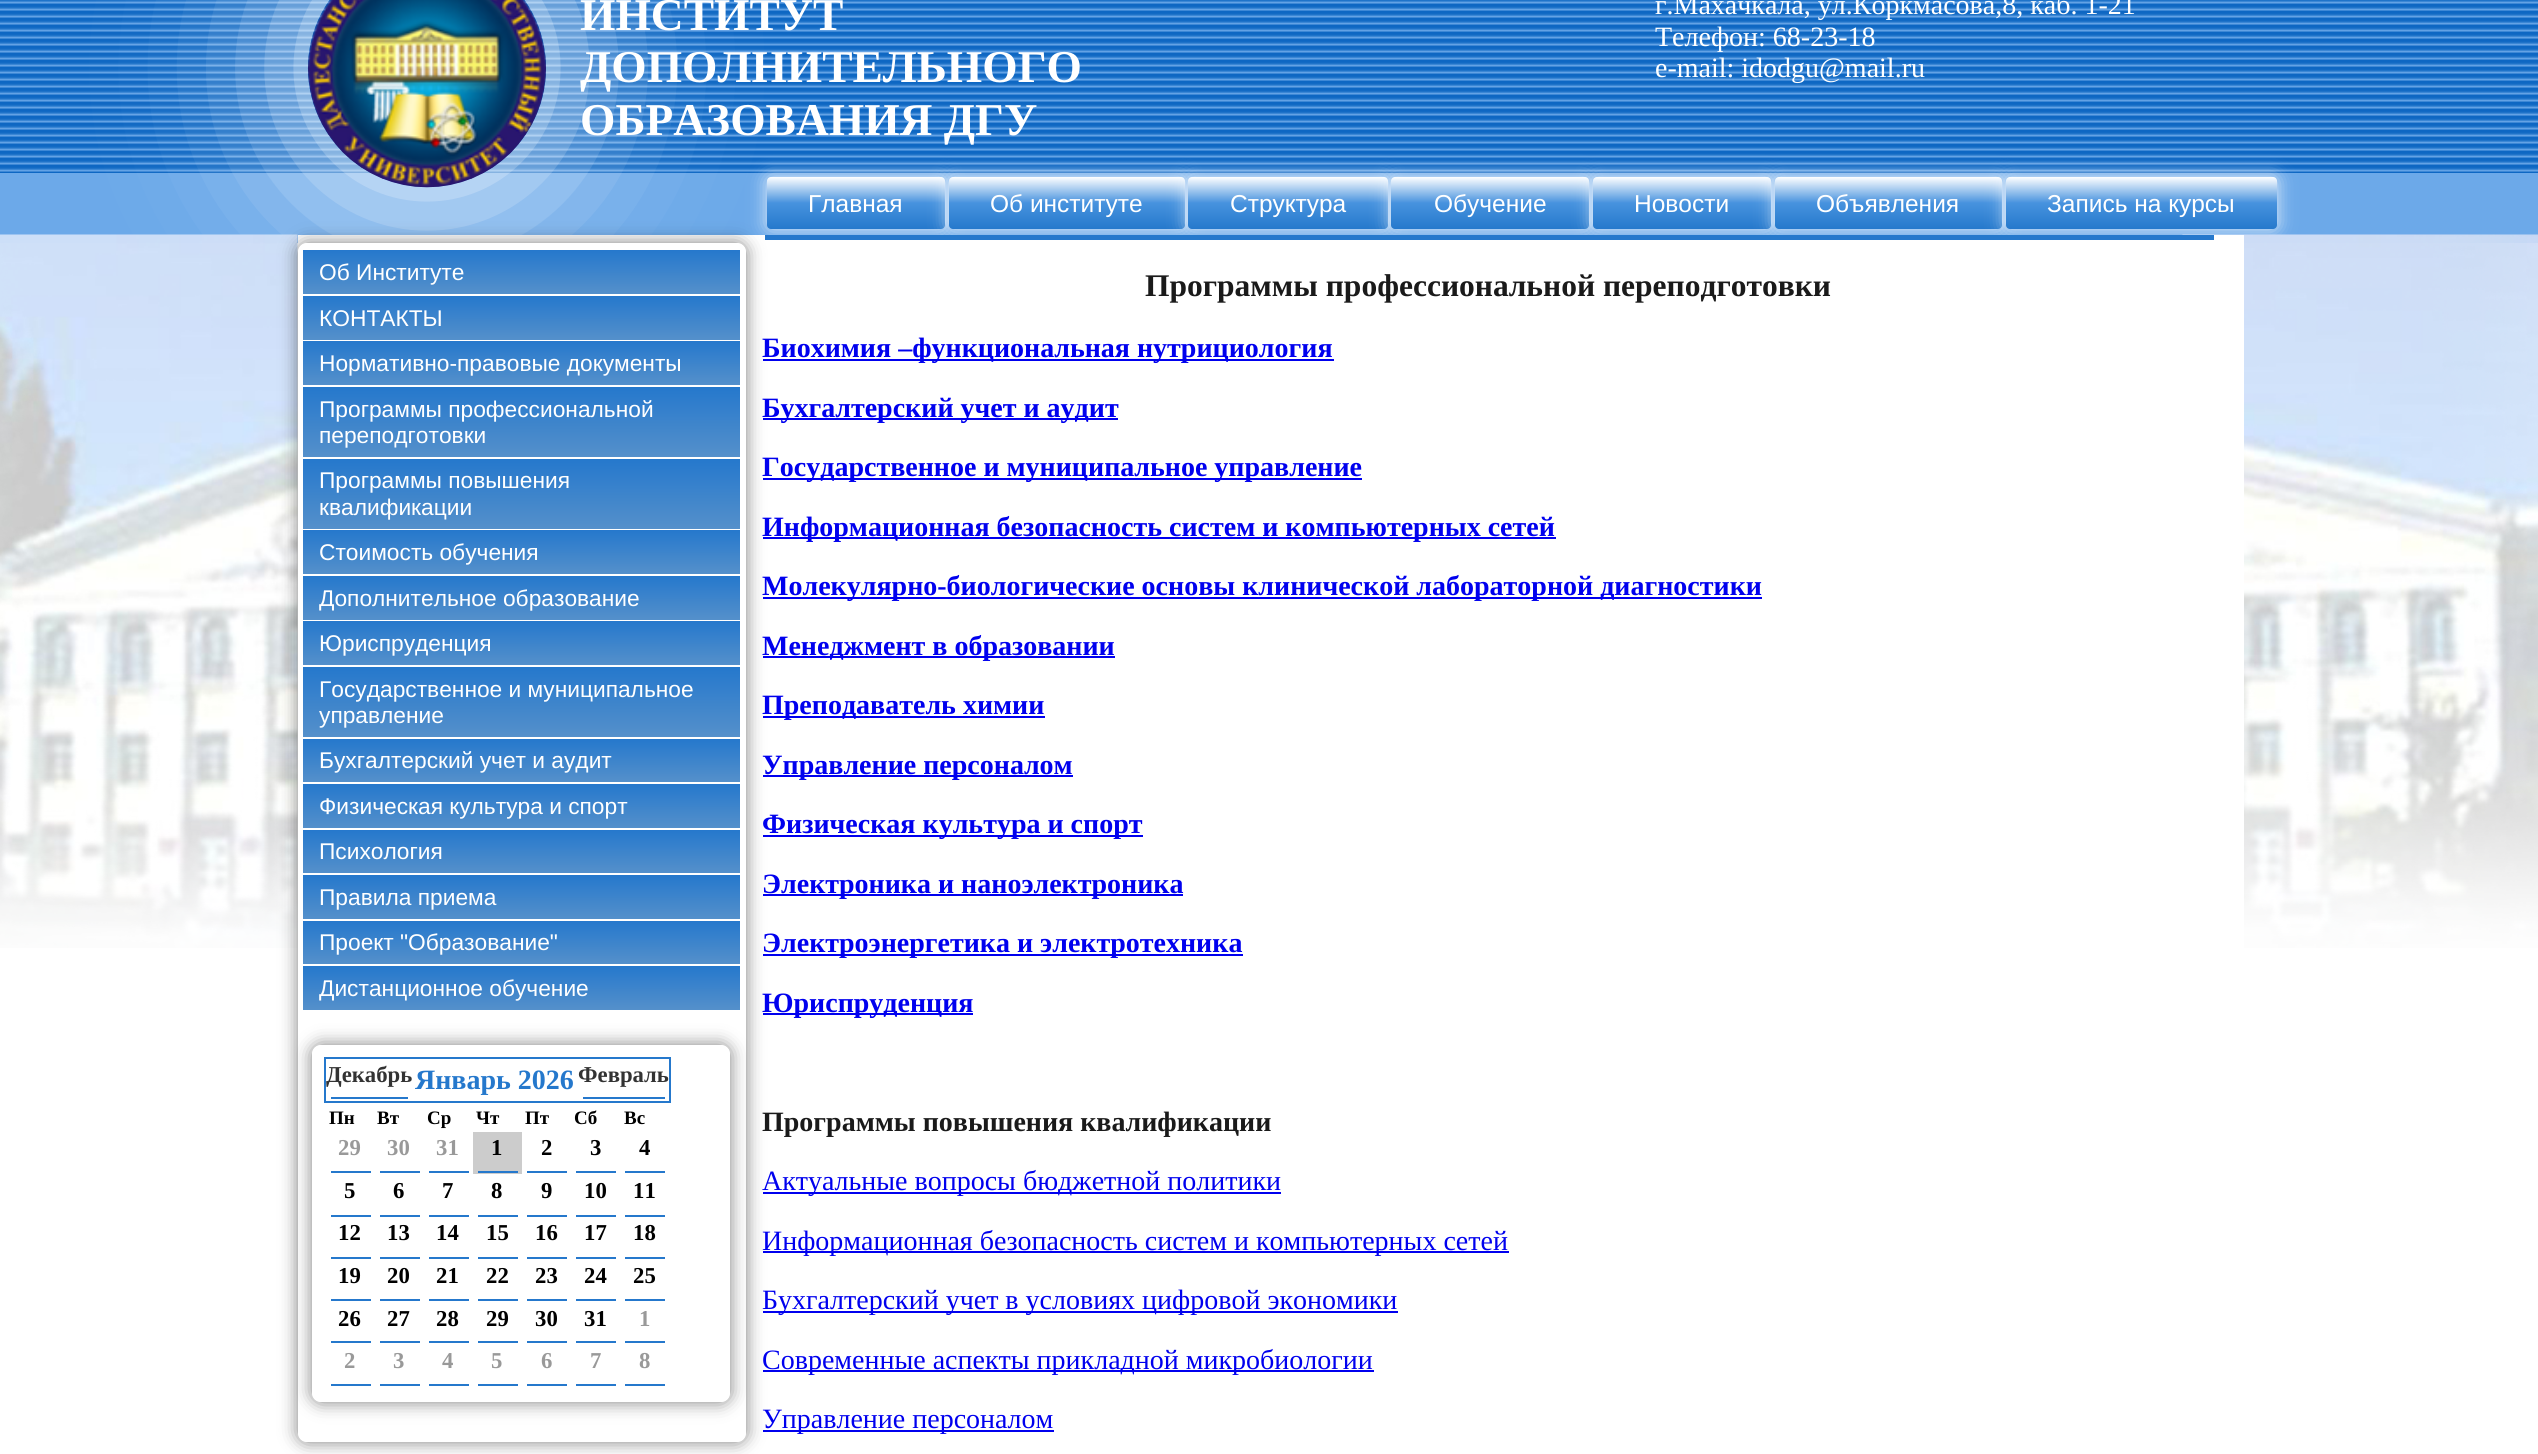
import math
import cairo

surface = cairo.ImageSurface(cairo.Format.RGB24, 2538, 1454)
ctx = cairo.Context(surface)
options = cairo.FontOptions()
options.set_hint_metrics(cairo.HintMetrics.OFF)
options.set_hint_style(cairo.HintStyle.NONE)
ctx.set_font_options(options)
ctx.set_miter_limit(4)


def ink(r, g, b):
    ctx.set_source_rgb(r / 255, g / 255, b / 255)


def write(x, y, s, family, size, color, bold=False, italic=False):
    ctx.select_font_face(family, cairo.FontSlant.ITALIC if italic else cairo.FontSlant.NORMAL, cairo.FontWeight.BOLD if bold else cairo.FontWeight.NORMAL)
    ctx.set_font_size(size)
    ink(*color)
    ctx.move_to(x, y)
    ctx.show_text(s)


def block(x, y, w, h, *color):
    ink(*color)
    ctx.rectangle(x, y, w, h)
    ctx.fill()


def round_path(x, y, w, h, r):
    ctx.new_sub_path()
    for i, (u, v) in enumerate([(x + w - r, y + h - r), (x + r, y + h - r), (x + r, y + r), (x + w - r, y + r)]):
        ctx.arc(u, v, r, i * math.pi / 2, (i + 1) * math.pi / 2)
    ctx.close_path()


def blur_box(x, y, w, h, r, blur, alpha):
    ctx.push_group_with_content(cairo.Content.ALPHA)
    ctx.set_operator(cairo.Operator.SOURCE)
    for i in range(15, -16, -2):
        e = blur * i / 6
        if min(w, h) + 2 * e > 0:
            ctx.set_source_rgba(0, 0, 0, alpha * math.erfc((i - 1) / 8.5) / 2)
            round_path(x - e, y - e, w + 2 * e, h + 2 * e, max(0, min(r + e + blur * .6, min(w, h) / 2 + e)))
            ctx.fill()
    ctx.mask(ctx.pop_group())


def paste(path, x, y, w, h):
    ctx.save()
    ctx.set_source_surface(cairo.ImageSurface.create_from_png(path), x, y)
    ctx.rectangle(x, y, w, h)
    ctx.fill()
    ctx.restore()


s1 = dict(family="Liberation Serif", size=45.5, color=(255, 255, 255), bold=True)
s2 = dict(family="Liberation Serif", size=28, color=(255, 255, 255))
s3 = dict(family="Liberation Sans", size=24.5, color=(255, 255, 255))
s4 = dict(family="Liberation Sans", size=22.75, color=(255, 255, 255))
s5 = dict(family="Liberation Serif", size=22.75, color=(51, 51, 51), bold=True)
s6 = dict(family="Liberation Serif", size=28, color=(37, 120, 204), bold=True)
s7 = dict(family="Liberation Serif", size=19, color=(0, 0, 0), bold=True)
s8 = dict(family="Liberation Serif", size=22.75, color=(153, 153, 153), bold=True)
s9 = dict(family="Liberation Serif", size=22.75, color=(0, 0, 0), bold=True)
s10 = dict(family="Liberation Serif", size=31.5, color=(26, 26, 26), bold=True)
s11 = dict(family="Liberation Serif", size=28, color=(0, 0, 238), bold=True)
s12 = dict(family="Liberation Serif", size=28, color=(26, 26, 26), bold=True)
s13 = dict(family="Liberation Serif", size=28, color=(0, 0, 238))

ink(255, 255, 255)
ctx.paint()
paste("pic1.png", 0, 0, 2538, 173)
block(0, 173, 2538, 70, 108, 169, 233)
ctx.save()
ctx.set_fill_rule(cairo.FillRule.EVEN_ODD)
ctx.new_path()
ctx.move_to(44, 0)
ctx.line_to(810, 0)
ctx.line_to(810, 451)
ctx.line_to(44, 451)
ctx.close_path()
ctx.move_to(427, -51)
ctx.curve_to(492.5, -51, 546, 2.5, 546, 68)
ctx.curve_to(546, 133.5, 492.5, 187, 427, 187)
ctx.curve_to(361.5, 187, 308, 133.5, 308, 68)
ctx.curve_to(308, 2.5, 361.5, -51, 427, -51)
ctx.close_path()
ctx.clip()
ink(254, 255, 255)
blur_box(308, -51, 238, 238, 119, 87.5, 1)
ctx.restore()
paste("pic2.png", 307, 0, 239, 188)
write(580, 30, "ИНСТИТУТ", **s1)
write(580, 82, "ДОПОЛНИТЕЛЬНОГО", **s1)
write(580, 135, "ОБРАЗОВАНИЯ ДГУ", **s1)
write(1655, 14, "г.Махачкала, ул.Коркмасова,8, каб. 1-21", **s2)
write(1655, 46, "Телефон: 68-23-18", **s2)
write(1655, 77, "e-mail: idodgu@mail.ru", **s2)
ink(255, 255, 255)
blur_box(767, 177, 178, 52, 4, 9, 0.8)
gradient = cairo.LinearGradient(856, 177, 856, 229)
gradient.add_color_stop_rgba(0, 1, 1, 1, 1)
gradient.add_color_stop_rgba(0.5, 0.278, 0.573, 0.871, 1)
gradient.add_color_stop_rgba(1, 0.145, 0.471, 0.8, 1)
ctx.set_source(gradient)
round_path(767, 177, 178, 52, 4)
ctx.fill()
write(808, 212, "Главная", **s3)
ink(255, 255, 255)
blur_box(949, 177, 236, 52, 4, 9, 0.8)
gradient = cairo.LinearGradient(1067, 177, 1067, 229)
gradient.add_color_stop_rgba(0, 1, 1, 1, 1)
gradient.add_color_stop_rgba(0.5, 0.278, 0.573, 0.871, 1)
gradient.add_color_stop_rgba(1, 0.145, 0.471, 0.8, 1)
ctx.set_source(gradient)
round_path(949, 177, 236, 52, 4)
ctx.fill()
write(990, 212, "Об институте", **s3)
ink(255, 255, 255)
blur_box(1188, 177, 200, 52, 4, 9, 0.8)
gradient = cairo.LinearGradient(1288, 177, 1288, 229)
gradient.add_color_stop_rgba(0, 1, 1, 1, 1)
gradient.add_color_stop_rgba(0.5, 0.278, 0.573, 0.871, 1)
gradient.add_color_stop_rgba(1, 0.145, 0.471, 0.8, 1)
ctx.set_source(gradient)
round_path(1188, 177, 200, 52, 4)
ctx.fill()
write(1230, 212, "Структура", **s3)
ink(255, 255, 255)
blur_box(1391, 177, 198, 52, 4, 9, 0.8)
gradient = cairo.LinearGradient(1490, 177, 1490, 229)
gradient.add_color_stop_rgba(0, 1, 1, 1, 1)
gradient.add_color_stop_rgba(0.5, 0.278, 0.573, 0.871, 1)
gradient.add_color_stop_rgba(1, 0.145, 0.471, 0.8, 1)
ctx.set_source(gradient)
round_path(1391, 177, 198, 52, 4)
ctx.fill()
write(1434, 212, "Обучение", **s3)
ink(255, 255, 255)
blur_box(1593, 177, 178, 52, 4, 9, 0.8)
gradient = cairo.LinearGradient(1682, 177, 1682, 229)
gradient.add_color_stop_rgba(0, 1, 1, 1, 1)
gradient.add_color_stop_rgba(0.5, 0.278, 0.573, 0.871, 1)
gradient.add_color_stop_rgba(1, 0.145, 0.471, 0.8, 1)
ctx.set_source(gradient)
round_path(1593, 177, 178, 52, 4)
ctx.fill()
write(1634, 212, "Новости", **s3)
ink(255, 255, 255)
blur_box(1775, 177, 227, 52, 4, 9, 0.8)
gradient = cairo.LinearGradient(1888, 177, 1888, 229)
gradient.add_color_stop_rgba(0, 1, 1, 1, 1)
gradient.add_color_stop_rgba(0.5, 0.278, 0.573, 0.871, 1)
gradient.add_color_stop_rgba(1, 0.145, 0.471, 0.8, 1)
ctx.set_source(gradient)
round_path(1775, 177, 227, 52, 4)
ctx.fill()
write(1816, 212, "Объявления", **s3)
ink(255, 255, 255)
blur_box(2006, 177, 271, 52, 4, 9, 0.8)
gradient = cairo.LinearGradient(2141, 177, 2141, 229)
gradient.add_color_stop_rgba(0, 1, 1, 1, 1)
gradient.add_color_stop_rgba(0.5, 0.278, 0.573, 0.871, 1)
gradient.add_color_stop_rgba(1, 0.145, 0.471, 0.8, 1)
ctx.set_source(gradient)
round_path(2006, 177, 271, 52, 4)
ctx.fill()
write(2047, 212, "Запись на курсы", **s3)
paste("pic3.png", 0, 234, 2538, 714)
block(298, 235, 1946, 713, 255, 255, 255)
ctx.save()
ctx.set_fill_rule(cairo.FillRule.EVEN_ODD)
ctx.new_path()
ctx.move_to(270, 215)
ctx.line_to(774, 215)
ctx.line_to(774, 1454)
ctx.line_to(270, 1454)
ctx.close_path()
ctx.move_to(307, 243)
ctx.line_to(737, 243)
ctx.curve_to(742, 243, 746, 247, 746, 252)
ctx.line_to(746, 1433)
ctx.curve_to(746, 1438, 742, 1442, 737, 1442)
ctx.line_to(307, 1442)
ctx.curve_to(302, 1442, 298, 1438, 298, 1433)
ctx.line_to(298, 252)
ctx.curve_to(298, 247, 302, 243, 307, 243)
ctx.close_path()
ctx.clip()
ink(0, 0, 0)
blur_box(298, 243, 448, 1199, 9, 9, 0.5)
ctx.restore()
gradient = cairo.LinearGradient(522, 294, 522, 250)
gradient.add_color_stop_rgba(0, 0.333, 0.565, 0.796, 1)
gradient.add_color_stop_rgba(1, 0.145, 0.471, 0.8, 1)
ctx.set_source(gradient)
ctx.rectangle(303, 250, 437, 44)
ctx.fill()
write(319, 280, "Об Институте", **s4)
gradient = cairo.LinearGradient(522, 340, 522, 296)
gradient.add_color_stop_rgba(0, 0.333, 0.565, 0.796, 1)
gradient.add_color_stop_rgba(1, 0.145, 0.471, 0.8, 1)
ctx.set_source(gradient)
ctx.rectangle(303, 296, 437, 44)
ctx.fill()
write(319, 326, "КОНТАКТЫ", **s4)
gradient = cairo.LinearGradient(522, 385, 522, 341)
gradient.add_color_stop_rgba(0, 0.333, 0.565, 0.796, 1)
gradient.add_color_stop_rgba(1, 0.145, 0.471, 0.8, 1)
ctx.set_source(gradient)
ctx.rectangle(303, 341, 437, 44)
ctx.fill()
write(319, 371, "Нормативно-правовые документы", **s4)
gradient = cairo.LinearGradient(522, 457, 522, 387)
gradient.add_color_stop_rgba(0, 0.333, 0.565, 0.796, 1)
gradient.add_color_stop_rgba(1, 0.145, 0.471, 0.8, 1)
ctx.set_source(gradient)
ctx.rectangle(303, 387, 437, 70)
ctx.fill()
write(319, 417, "Программы профессиональной", **s4)
write(319, 443, "переподготовки", **s4)
gradient = cairo.LinearGradient(522, 529, 522, 459)
gradient.add_color_stop_rgba(0, 0.333, 0.565, 0.796, 1)
gradient.add_color_stop_rgba(1, 0.145, 0.471, 0.8, 1)
ctx.set_source(gradient)
ctx.rectangle(303, 459, 437, 70)
ctx.fill()
write(319, 488, "Программы повышения", **s4)
write(319, 515, "квалификации", **s4)
gradient = cairo.LinearGradient(522, 574, 522, 530)
gradient.add_color_stop_rgba(0, 0.333, 0.565, 0.796, 1)
gradient.add_color_stop_rgba(1, 0.145, 0.471, 0.8, 1)
ctx.set_source(gradient)
ctx.rectangle(303, 530, 437, 44)
ctx.fill()
write(319, 560, "Стоимость обучения", **s4)
gradient = cairo.LinearGradient(522, 620, 522, 576)
gradient.add_color_stop_rgba(0, 0.333, 0.565, 0.796, 1)
gradient.add_color_stop_rgba(1, 0.145, 0.471, 0.8, 1)
ctx.set_source(gradient)
ctx.rectangle(303, 576, 437, 44)
ctx.fill()
write(319, 606, "Дополнительное образование", **s4)
gradient = cairo.LinearGradient(522, 665, 522, 621)
gradient.add_color_stop_rgba(0, 0.333, 0.565, 0.796, 1)
gradient.add_color_stop_rgba(1, 0.145, 0.471, 0.8, 1)
ctx.set_source(gradient)
ctx.rectangle(303, 621, 437, 44)
ctx.fill()
write(319, 651, "Юриспруденция", **s4)
gradient = cairo.LinearGradient(522, 737, 522, 667)
gradient.add_color_stop_rgba(0, 0.333, 0.565, 0.796, 1)
gradient.add_color_stop_rgba(1, 0.145, 0.471, 0.8, 1)
ctx.set_source(gradient)
ctx.rectangle(303, 667, 437, 70)
ctx.fill()
write(319, 697, "Государственное и муниципальное", **s4)
write(319, 723, "управление", **s4)
gradient = cairo.LinearGradient(522, 782, 522, 739)
gradient.add_color_stop_rgba(0, 0.333, 0.565, 0.796, 1)
gradient.add_color_stop_rgba(1, 0.145, 0.471, 0.8, 1)
ctx.set_source(gradient)
ctx.rectangle(303, 739, 437, 43)
ctx.fill()
write(319, 768, "Бухгалтерский учет и аудит", **s4)
gradient = cairo.LinearGradient(522, 828, 522, 784)
gradient.add_color_stop_rgba(0, 0.333, 0.565, 0.796, 1)
gradient.add_color_stop_rgba(1, 0.145, 0.471, 0.8, 1)
ctx.set_source(gradient)
ctx.rectangle(303, 784, 437, 44)
ctx.fill()
write(319, 814, "Физическая культура и спорт", **s4)
gradient = cairo.LinearGradient(522, 873, 522, 830)
gradient.add_color_stop_rgba(0, 0.333, 0.565, 0.796, 1)
gradient.add_color_stop_rgba(1, 0.145, 0.471, 0.8, 1)
ctx.set_source(gradient)
ctx.rectangle(303, 830, 437, 43)
ctx.fill()
write(319, 859, "Психология", **s4)
gradient = cairo.LinearGradient(522, 919, 522, 875)
gradient.add_color_stop_rgba(0, 0.333, 0.565, 0.796, 1)
gradient.add_color_stop_rgba(1, 0.145, 0.471, 0.8, 1)
ctx.set_source(gradient)
ctx.rectangle(303, 875, 437, 44)
ctx.fill()
write(319, 905, "Правила приема", **s4)
gradient = cairo.LinearGradient(522, 964, 522, 921)
gradient.add_color_stop_rgba(0, 0.333, 0.565, 0.796, 1)
gradient.add_color_stop_rgba(1, 0.145, 0.471, 0.8, 1)
ctx.set_source(gradient)
ctx.rectangle(303, 921, 437, 43)
ctx.fill()
write(319, 950, "Проект \"Образование\"", **s4)
gradient = cairo.LinearGradient(522, 1010, 522, 966)
gradient.add_color_stop_rgba(0, 0.333, 0.565, 0.796, 1)
gradient.add_color_stop_rgba(1, 0.145, 0.471, 0.8, 1)
ctx.set_source(gradient)
ctx.rectangle(303, 966, 437, 44)
ctx.fill()
write(319, 996, "Дистанционное обучение", **s4)
ctx.save()
ctx.set_fill_rule(cairo.FillRule.EVEN_ODD)
ctx.new_path()
ctx.move_to(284, 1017)
ctx.line_to(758, 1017)
ctx.line_to(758, 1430)
ctx.line_to(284, 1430)
ctx.close_path()
ctx.move_to(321, 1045)
ctx.line_to(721, 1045)
ctx.curve_to(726, 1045, 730, 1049, 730, 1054)
ctx.line_to(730, 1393)
ctx.curve_to(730, 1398, 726, 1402, 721, 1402)
ctx.line_to(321, 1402)
ctx.curve_to(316, 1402, 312, 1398, 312, 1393)
ctx.line_to(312, 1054)
ctx.curve_to(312, 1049, 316, 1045, 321, 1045)
ctx.close_path()
ctx.clip()
ink(0, 0, 0)
blur_box(312, 1045, 418, 357, 9, 9, 0.5)
ctx.restore()
block(324, 1057, 346, 2, 37, 120, 204)
block(669, 1057, 2, 46, 37, 120, 204)
block(324, 1101, 346, 2, 37, 120, 204)
block(324, 1057, 2, 46, 37, 120, 204)
block(331, 1097, 77, 2, 37, 120, 204)
write(326, 1082, "Декабрь", **s5)
write(415, 1089, "Январь 2026", **s6)
block(583, 1097, 82, 2, 37, 120, 204)
write(578, 1082, "Февраль", **s5)
write(329, 1124, "Пн", **s7)
write(377, 1124, "Вт", **s7)
write(427, 1124, "Ср", **s7)
write(476, 1124, "Чт", **s7)
write(525, 1124, "Пт", **s7)
write(574, 1124, "Сб", **s7)
write(624, 1124, "Вс", **s7)
block(331, 1171, 40, 2, 37, 120, 204)
write(338, 1155, "29", **s8)
block(380, 1171, 40, 2, 37, 120, 204)
write(387, 1155, "30", **s8)
block(429, 1171, 40, 2, 37, 120, 204)
write(436, 1155, "31", **s8)
block(473, 1132, 49, 42, 204, 204, 204)
block(478, 1171, 40, 2, 37, 120, 204)
write(491, 1155, "1", **s9)
block(527, 1171, 40, 2, 37, 120, 204)
write(541, 1155, "2", **s9)
block(576, 1171, 40, 2, 37, 120, 204)
write(590, 1155, "3", **s9)
block(625, 1171, 40, 2, 37, 120, 204)
write(639, 1155, "4", **s9)
block(331, 1215, 40, 2, 37, 120, 204)
write(344, 1198, "5", **s9)
block(380, 1215, 40, 2, 37, 120, 204)
write(393, 1198, "6", **s9)
block(429, 1215, 40, 2, 37, 120, 204)
write(442, 1198, "7", **s9)
block(478, 1215, 40, 2, 37, 120, 204)
write(491, 1198, "8", **s9)
block(527, 1215, 40, 2, 37, 120, 204)
write(541, 1198, "9", **s9)
block(576, 1215, 40, 2, 37, 120, 204)
write(584, 1198, "10", **s9)
block(625, 1215, 40, 2, 37, 120, 204)
write(633, 1198, "11", **s9)
block(331, 1257, 40, 2, 37, 120, 204)
write(338, 1240, "12", **s9)
block(380, 1257, 40, 2, 37, 120, 204)
write(387, 1240, "13", **s9)
block(429, 1257, 40, 2, 37, 120, 204)
write(436, 1240, "14", **s9)
block(478, 1257, 40, 2, 37, 120, 204)
write(486, 1240, "15", **s9)
block(527, 1257, 40, 2, 37, 120, 204)
write(535, 1240, "16", **s9)
block(576, 1257, 40, 2, 37, 120, 204)
write(584, 1240, "17", **s9)
block(625, 1257, 40, 2, 37, 120, 204)
write(633, 1240, "18", **s9)
block(331, 1299, 40, 2, 37, 120, 204)
write(338, 1283, "19", **s9)
block(380, 1299, 40, 2, 37, 120, 204)
write(387, 1283, "20", **s9)
block(429, 1299, 40, 2, 37, 120, 204)
write(436, 1283, "21", **s9)
block(478, 1299, 40, 2, 37, 120, 204)
write(486, 1283, "22", **s9)
block(527, 1299, 40, 2, 37, 120, 204)
write(535, 1283, "23", **s9)
block(576, 1299, 40, 2, 37, 120, 204)
write(584, 1283, "24", **s9)
block(625, 1299, 40, 2, 37, 120, 204)
write(633, 1283, "25", **s9)
block(331, 1341, 40, 2, 37, 120, 204)
write(338, 1326, "26", **s9)
block(380, 1341, 40, 2, 37, 120, 204)
write(387, 1326, "27", **s9)
block(429, 1341, 40, 2, 37, 120, 204)
write(436, 1326, "28", **s9)
block(478, 1341, 40, 2, 37, 120, 204)
write(486, 1326, "29", **s9)
block(527, 1341, 40, 2, 37, 120, 204)
write(535, 1326, "30", **s9)
block(576, 1341, 40, 2, 37, 120, 204)
write(584, 1326, "31", **s9)
block(625, 1341, 40, 2, 37, 120, 204)
write(639, 1326, "1", **s8)
block(331, 1384, 40, 2, 37, 120, 204)
write(344, 1368, "2", **s8)
block(380, 1384, 40, 2, 37, 120, 204)
write(393, 1368, "3", **s8)
block(429, 1384, 40, 2, 37, 120, 204)
write(442, 1368, "4", **s8)
block(478, 1384, 40, 2, 37, 120, 204)
write(491, 1368, "5", **s8)
block(527, 1384, 40, 2, 37, 120, 204)
write(541, 1368, "6", **s8)
block(576, 1384, 40, 2, 37, 120, 204)
write(590, 1368, "7", **s8)
block(625, 1384, 40, 2, 37, 120, 204)
write(639, 1368, "8", **s8)
block(765, 235, 1449, 5, 37, 120, 204)
write(1145, 296, "Программы профессиональной переподготовки", **s10)
block(763, 359, 571, 2, 0, 0, 238)
write(762, 357, "Биохимия –функциональная нутрициология", **s11)
block(763, 418, 355, 2, 0, 0, 238)
write(762, 417, "Бухгалтерский учет и аудит", **s11)
block(763, 478, 599, 2, 0, 0, 238)
write(762, 476, "Государственное и муниципальное управление", **s11)
block(763, 537, 793, 2, 0, 0, 238)
write(762, 536, "Информационная безопасность систем и компьютерных сетей", **s11)
block(763, 597, 999, 2, 0, 0, 238)
write(762, 595, "Молекулярно-биологические основы клинической лабораторной диагностики", **s11)
block(763, 656, 352, 2, 0, 0, 238)
write(762, 655, "Менеджмент в образовании", **s11)
block(763, 716, 282, 2, 0, 0, 238)
write(762, 714, "Преподаватель химии", **s11)
block(763, 775, 310, 2, 0, 0, 238)
write(762, 774, "Управление персоналом", **s11)
block(763, 835, 380, 2, 0, 0, 238)
write(762, 833, "Физическая культура и спорт", **s11)
block(763, 894, 420, 2, 0, 0, 238)
write(762, 893, "Электроника и наноэлектроника", **s11)
block(763, 954, 480, 2, 0, 0, 238)
write(762, 952, "Электроэнергетика и электротехника", **s11)
block(763, 1013, 210, 2, 0, 0, 238)
write(762, 1012, "Юриспруденция", **s11)
write(762, 1131, "Программы повышения квалификации", **s12)
block(763, 1192, 518, 2, 0, 0, 238)
write(762, 1190, "Актуальные вопросы бюджетной политики", **s13)
block(763, 1251, 746, 2, 0, 0, 238)
write(762, 1250, "Информационная безопасность систем и компьютерных сетей", **s13)
block(763, 1311, 635, 2, 0, 0, 238)
write(762, 1309, "Бухгалтерский учет в условиях цифровой экономики", **s13)
block(763, 1370, 611, 2, 0, 0, 238)
write(762, 1369, "Современные аспекты прикладной микробиологии", **s13)
block(763, 1430, 291, 2, 0, 0, 238)
write(762, 1428, "Управление персоналом", **s13)
surface.write_to_png("screenshot.png")
